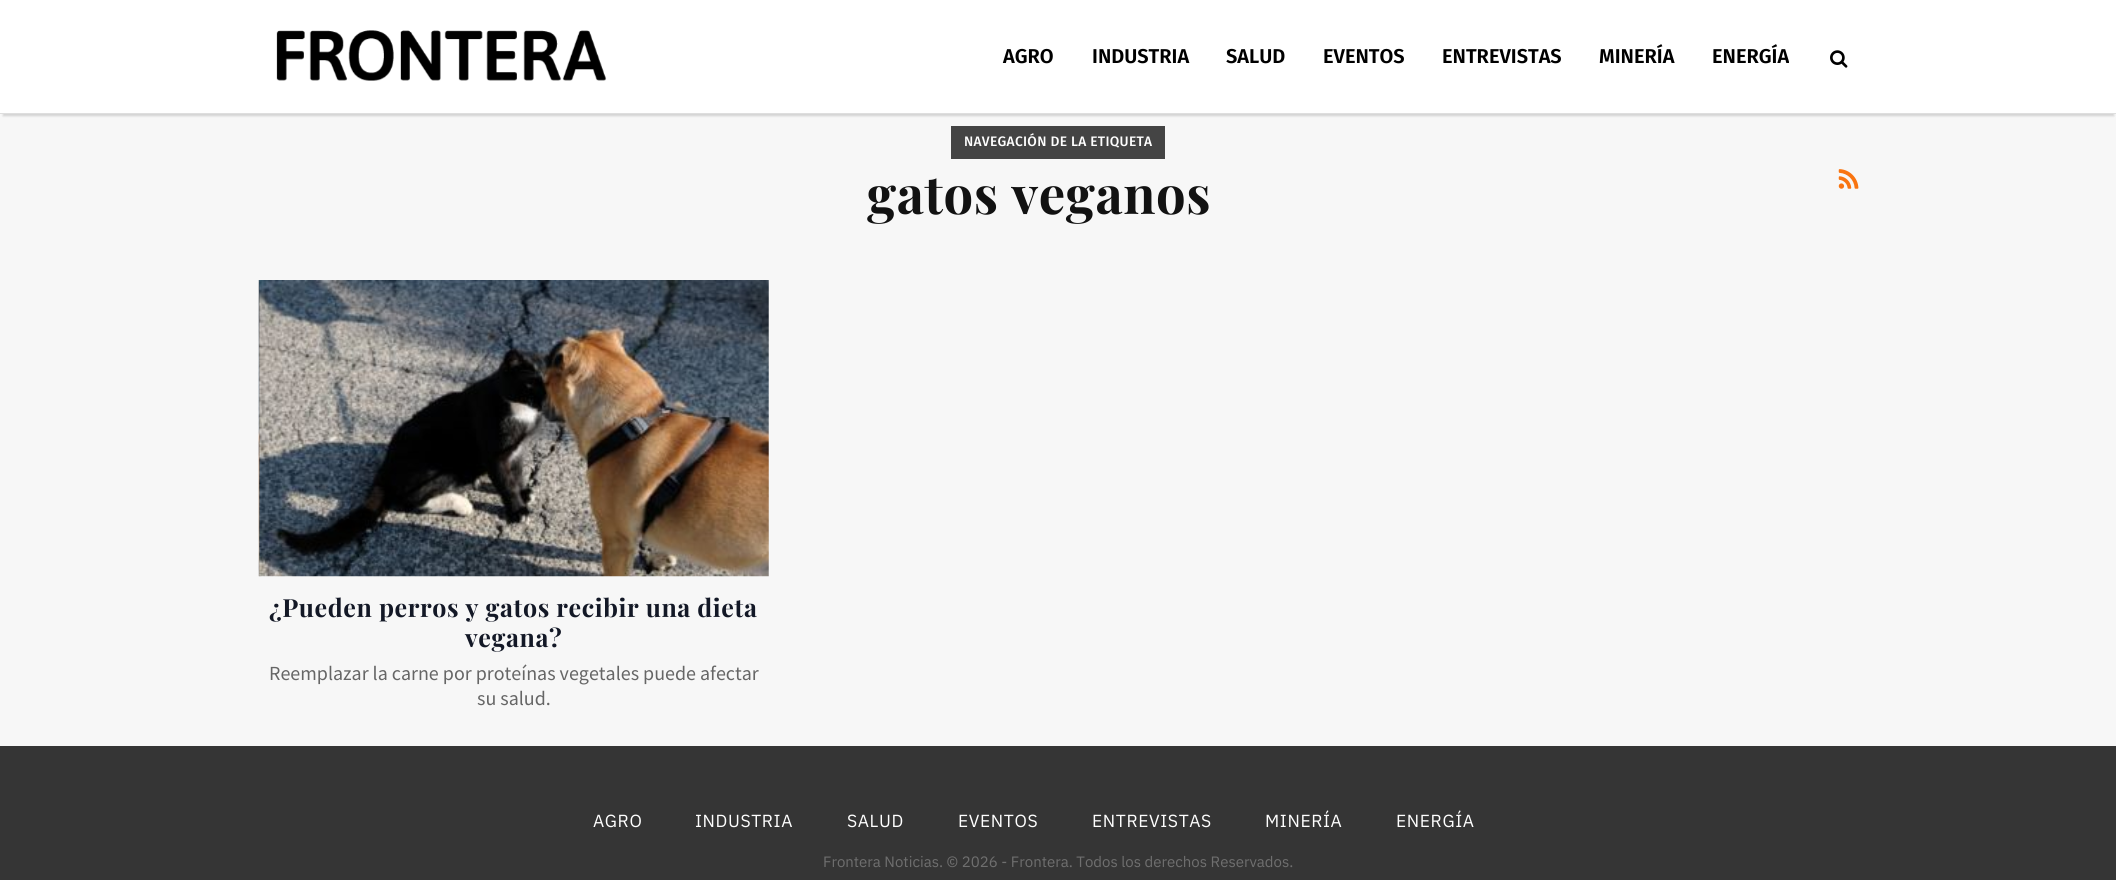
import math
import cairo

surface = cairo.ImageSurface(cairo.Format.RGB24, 2116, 880)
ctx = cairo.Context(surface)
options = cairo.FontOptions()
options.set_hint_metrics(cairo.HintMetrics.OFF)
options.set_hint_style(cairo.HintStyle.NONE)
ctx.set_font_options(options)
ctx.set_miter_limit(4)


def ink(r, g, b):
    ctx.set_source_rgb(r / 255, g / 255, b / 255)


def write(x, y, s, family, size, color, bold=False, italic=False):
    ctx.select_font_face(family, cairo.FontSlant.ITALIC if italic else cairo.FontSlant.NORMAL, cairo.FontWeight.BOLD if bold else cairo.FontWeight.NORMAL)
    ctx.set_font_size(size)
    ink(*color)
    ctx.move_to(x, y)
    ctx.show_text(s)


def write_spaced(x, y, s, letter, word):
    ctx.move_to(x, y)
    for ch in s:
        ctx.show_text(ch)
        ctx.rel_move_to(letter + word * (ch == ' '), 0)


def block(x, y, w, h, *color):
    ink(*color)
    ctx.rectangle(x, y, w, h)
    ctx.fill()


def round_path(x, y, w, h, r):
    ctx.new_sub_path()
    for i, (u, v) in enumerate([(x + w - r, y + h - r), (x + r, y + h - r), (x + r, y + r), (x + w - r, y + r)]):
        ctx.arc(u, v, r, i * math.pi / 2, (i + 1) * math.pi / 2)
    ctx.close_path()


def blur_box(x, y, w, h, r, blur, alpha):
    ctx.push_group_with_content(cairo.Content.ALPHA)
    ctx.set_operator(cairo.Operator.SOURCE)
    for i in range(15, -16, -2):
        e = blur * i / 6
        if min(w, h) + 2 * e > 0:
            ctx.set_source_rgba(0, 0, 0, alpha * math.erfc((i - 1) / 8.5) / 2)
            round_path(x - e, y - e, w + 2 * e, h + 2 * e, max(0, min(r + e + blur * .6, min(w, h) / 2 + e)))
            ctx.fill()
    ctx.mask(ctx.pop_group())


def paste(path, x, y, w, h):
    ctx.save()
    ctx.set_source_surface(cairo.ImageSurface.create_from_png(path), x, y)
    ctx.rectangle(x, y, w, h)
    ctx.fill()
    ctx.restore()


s1 = dict(family="Fira Sans SemiBold", size=20, color=(0, 0, 0))
s2 = dict(family="Source Sans Pro", size=20, color=(102, 102, 102))
s3 = dict(family="IBM Plex Sans", size=15, color=(111, 111, 111))

ink(247, 247, 247)
ctx.paint()
ink(0, 0, 0)
blur_box(3, 8, 2111, 108, 0, 1, 0.15)
block(0, 0, 2116, 113, 255, 255, 255)
block(0, 113, 2116, 1, 222, 222, 222)
paste("pic1.png", 276, 30, 331, 51)
write(1003, 63, "AGRO", **s1)
write(1092, 63, "INDUSTRIA", **s1)
write(1226, 63, "SALUD", **s1)
write(1323, 63, "EVENTOS", **s1)
write(1442, 63, "ENTREVISTAS", **s1)
write(1599, 63, "MINERÍA", **s1)
write(1712, 63, "ENERGÍA", **s1)
paste("pic2.png", 1830, 50, 18, 18)
block(951, 126, 214, 33, 68, 68, 68)
ctx.select_font_face("Fira Sans Medium")
ctx.set_font_size(13.75)
ink(255, 255, 255)
write_spaced(964, 146, "NAVEGACIÓN DE LA ETIQUETA", 0.3, 0)
ctx.select_font_face("Playfair Display", cairo.FontSlant.NORMAL, cairo.FontWeight.BOLD)
ctx.set_font_size(52.5)
ink(18, 18, 18)
write_spaced(867, 214, "gatos veganos", 0.6, 0)
paste("pic3.png", 1838, 169, 21, 20)
paste("pic4.png", 258, 280, 511, 297)
ctx.set_font_size(25)
ink(19, 24, 38)
write_spaced(269, 617, "¿Pueden perros y gatos recibir una dieta", 0.6, 0)
write_spaced(465, 647, "vegana?", 0.6, 0)
write(269, 680, "Reemplazar la carne por proteínas vegetales puede afectar", **s2)
write(477, 705, "su salud.", **s2)
block(0, 746, 2116, 134, 53, 53, 53)
ctx.select_font_face("IBM Plex Sans")
ctx.set_font_size(17.5)
ink(255, 255, 255)
write_spaced(593, 827, "AGRO", 0.6, 0)
write_spaced(695, 827, "INDUSTRIA", 0.6, 0)
write_spaced(847, 827, "SALUD", 0.6, 0)
write_spaced(958, 827, "EVENTOS", 0.6, 0)
write_spaced(1092, 827, "ENTREVISTAS", 0.6, 0)
write_spaced(1265, 827, "MINERÍA", 0.6, 0)
write_spaced(1396, 827, "ENERGÍA", 0.6, 0)
write(823, 867, "Frontera Noticias. © 2026 - Frontera. Todos los derechos Reservados.", **s3)
surface.write_to_png("screenshot.png")
